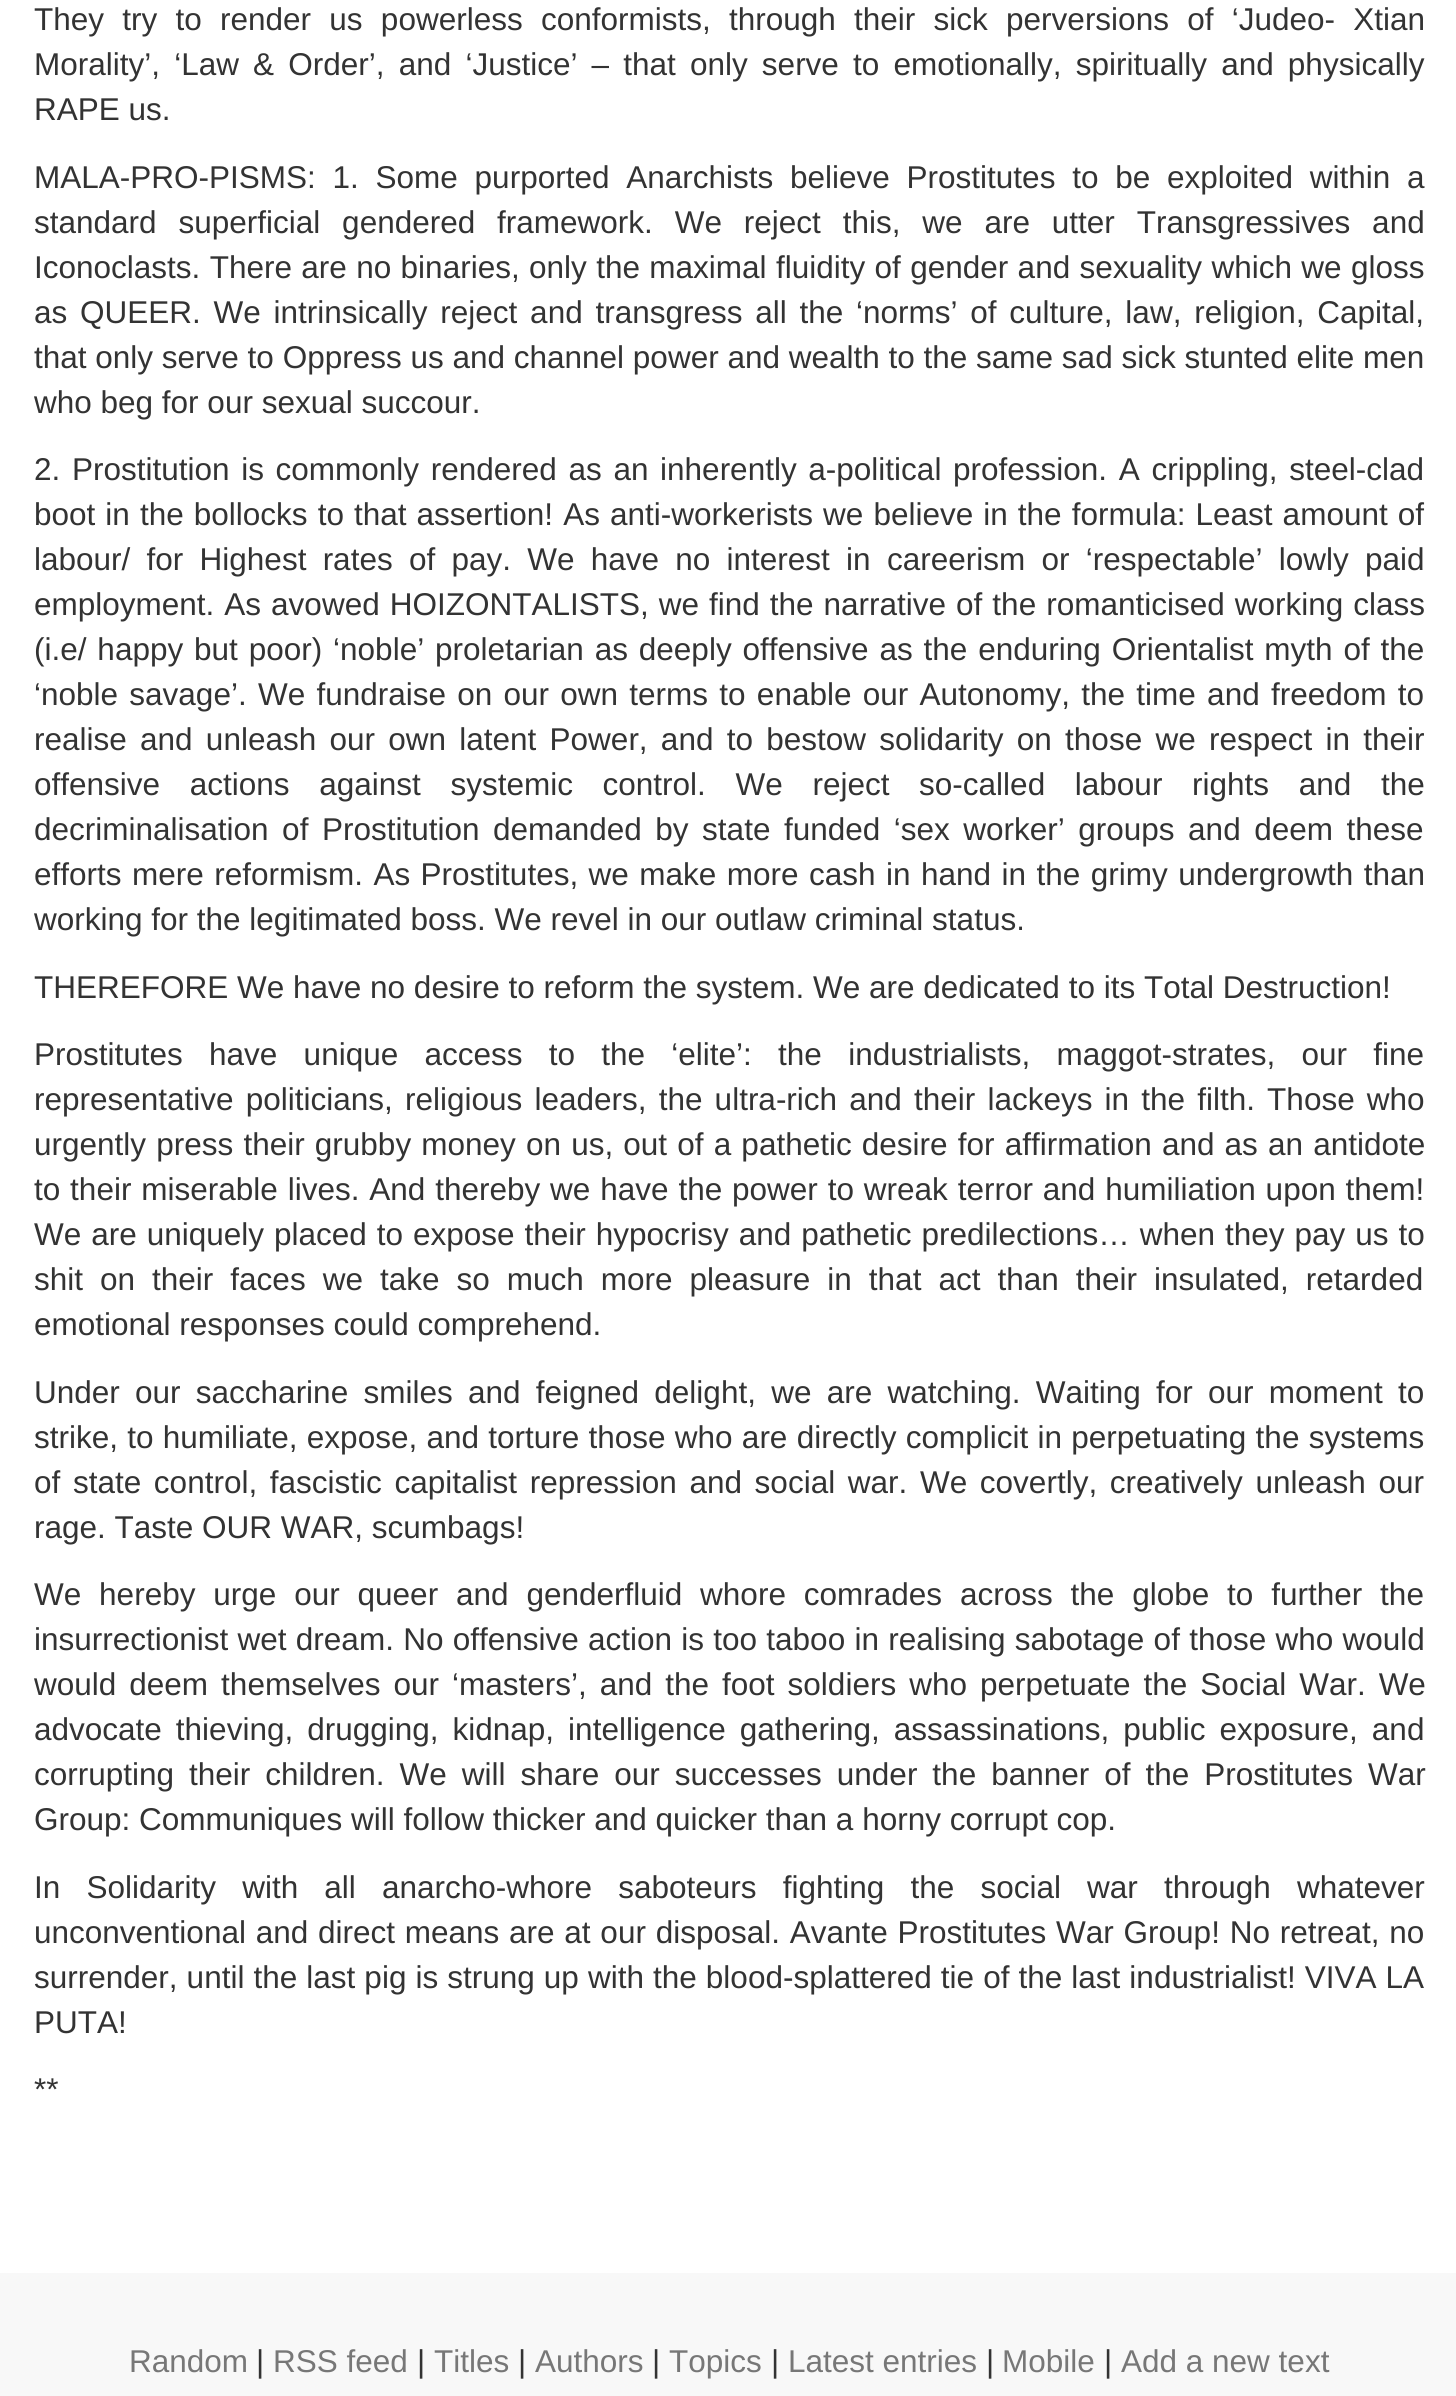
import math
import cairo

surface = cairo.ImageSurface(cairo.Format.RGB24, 1456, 2396)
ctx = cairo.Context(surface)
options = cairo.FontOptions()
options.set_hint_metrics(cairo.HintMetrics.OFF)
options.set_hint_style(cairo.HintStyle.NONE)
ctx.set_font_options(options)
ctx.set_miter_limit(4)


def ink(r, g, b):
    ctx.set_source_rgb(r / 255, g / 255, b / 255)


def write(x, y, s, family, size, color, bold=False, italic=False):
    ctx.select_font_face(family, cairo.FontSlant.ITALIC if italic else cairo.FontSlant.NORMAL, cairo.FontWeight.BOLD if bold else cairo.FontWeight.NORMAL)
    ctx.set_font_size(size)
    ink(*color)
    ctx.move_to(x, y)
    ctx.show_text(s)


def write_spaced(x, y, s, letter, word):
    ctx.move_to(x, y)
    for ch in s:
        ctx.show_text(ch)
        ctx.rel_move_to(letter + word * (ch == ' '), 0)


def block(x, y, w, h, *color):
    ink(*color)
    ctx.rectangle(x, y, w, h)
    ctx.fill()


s1 = dict(family="Liberation Sans", size=31.5, color=(51, 51, 51))
s2 = dict(family="Liberation Sans", size=31.5, color=(119, 119, 119))

ink(255, 255, 255)
ctx.paint()
ctx.select_font_face("Liberation Sans")
ctx.set_font_size(31.5)
ink(51, 51, 51)
write_spaced(34, 30, "They try to render us powerless conformists, through their sick perversions of ‘Judeo- Xtian", 0, 9.5)
write_spaced(34, 75, "Morality’, ‘Law & Order’, and ‘Justice’ – that only serve to emotionally, spiritually and physically", 0, 5.4)
write(34, 120, "RAPE us.", **s1)
write_spaced(34, 188, "MALA-PRO-PISMS: 1. Some purported Anarchists believe Prostitutes to be exploited within a", 0, 8)
write_spaced(34, 233, "standard superficial gendered framework. We reject this, we are utter Transgressives and", 0, 13.1)
write_spaced(34, 278, "Iconoclasts. There are no binaries, only the maximal fluidity of gender and sexuality which we gloss", 0, 0.6)
write_spaced(34, 323, "as QUEER. We intrinsically reject and transgress all the ‘norms’ of culture, law, religion, Capital,", 0, 4)
write(34, 368, "that only serve to Oppress us and channel power and wealth to the same sad sick stunted elite men", **s1)
write(34, 413, "who beg for our sexual succour.", **s1)
write_spaced(34, 480, "2. Prostitution is commonly rendered as an inherently a-political profession. A crippling, steel-clad", 0, 2.9)
write_spaced(34, 525, "boot in the bollocks to that assertion! As anti-workerists we believe in the formula: Least amount of", 0, 1.3)
write_spaced(34, 570, "labour/ for Highest rates of pay. We have no interest in careerism or ‘respectable’ lowly paid", 0, 7.5)
write_spaced(34, 615, "employment. As avowed HOIZONTALISTS, we find the narrative of the romanticised working class", 0, 1.25)
write_spaced(34, 660, "(i.e/ happy but poor) ‘noble’ proletarian as deeply offensive as the enduring Orientalist myth of the", 0, 2.1)
write_spaced(34, 705, "‘noble savage’. We fundraise on our own terms to enable our Autonomy, the time and freedom to", 0, 2.5)
write_spaced(34, 750, "realise and unleash our own latent Power, and to bestow solidarity on those we respect in their", 0, 4.5)
write_spaced(34, 795, "offensive actions against systemic control. We reject so-called labour rights and the", 0, 20.9)
write_spaced(34, 840, "decriminalisation of Prostitution demanded by state funded ‘sex worker’ groups and deem these", 0, 4.75)
write_spaced(34, 885, "efforts mere reformism. As Prostitutes, we make more cash in hand in the grimy undergrowth than", 0, 1.7)
write(34, 930, "working for the legitimated boss. We revel in our outlaw criminal status.", **s1)
write(34, 998, "THEREFORE We have no desire to reform the system. We are dedicated to its Total Destruction!", **s1)
write_spaced(34, 1065, "Prostitutes have unique access to the ‘elite’: the industrialists, maggot-strates, our fine", 0, 17.5)
write_spaced(34, 1110, "representative politicians, religious leaders, the ultra-rich and their lackeys in the filth. Those who", 0, 3.4)
write_spaced(34, 1155, "urgently press their grubby money on us, out of a pathetic desire for affirmation and as an antidote", 0, 1.4)
write_spaced(34, 1200, "to their miserable lives. And thereby we have the power to wreak terror and humiliation upon them!", 0, 1.1)
write_spaced(34, 1245, "We are uniquely placed to expose their hypocrisy and pathetic predilections… when they pay us to", 0, 1.2)
write_spaced(34, 1290, "shit on their faces we take so much more pleasure in that act than their insulated, retarded", 0, 8.25)
write(34, 1335, "emotional responses could comprehend.", **s1)
write_spaced(34, 1403, "Under our saccharine smiles and feigned delight, we are watching. Waiting for our moment to", 0, 6.5)
write_spaced(34, 1448, "strike, to humiliate, expose, and torture those who are directly complicit in perpetuating the systems", 0, 0.5)
write_spaced(34, 1493, "of state control, fascistic capitalist repression and social war. We covertly, creatively unleash our", 0, 3.9)
write(34, 1538, "rage. Taste OUR WAR, scumbags!", **s1)
write_spaced(34, 1605, "We hereby urge our queer and genderfluid whore comrades across the globe to further the", 0, 9.1)
write_spaced(34, 1650, "insurrectionist wet dream. No offensive action is too taboo in realising sabotage of those who would", 0, 0.5)
write_spaced(34, 1695, "would deem themselves our ‘masters’, and the foot soldiers who perpetuate the Social War. We", 0, 4.25)
write_spaced(34, 1740, "advocate thieving, drugging, kidnap, intelligence gathering, assassinations, public exposure, and", 0, 5.25)
write_spaced(34, 1785, "corrupting their children. We will share our successes under the banner of the Prostitutes War", 0, 6.25)
write(34, 1830, "Group: Communiques will follow thicker and quicker than a horny corrupt cop.", **s1)
write_spaced(34, 1898, "In Solidarity with all anarcho-whore saboteurs fighting the social war through whatever", 0, 17.4)
write_spaced(34, 1943, "unconventional and direct means are at our disposal. Avante Prostitutes War Group! No retreat, no", 0, 1)
write_spaced(34, 1988, "surrender, until the last pig is strung up with the blood-splattered tie of the last industrialist! VIVA LA", 0, 0.3)
write(34, 2033, "PUTA!", **s1)
write(34, 2100, "**", **s1)
block(0, 2273, 1456, 123, 248, 248, 248)
write(129, 2372, "Random", **s2)
write(256, 2372, "|", **s1)
write(273, 2372, "RSS feed", **s2)
write(417, 2372, "|", **s1)
write(434, 2372, "Titles", **s2)
write(518, 2372, "|", **s1)
write(535, 2372, "Authors", **s2)
write(652, 2372, "|", **s1)
write(669, 2372, "Topics", **s2)
write(771, 2372, "|", **s1)
write(788, 2372, "Latest entries", **s2)
write(986, 2372, "|", **s1)
write(1002, 2372, "Mobile", **s2)
write(1104, 2372, "|", **s1)
write(1121, 2372, "Add a new text", **s2)
surface.write_to_png("screenshot.png")
